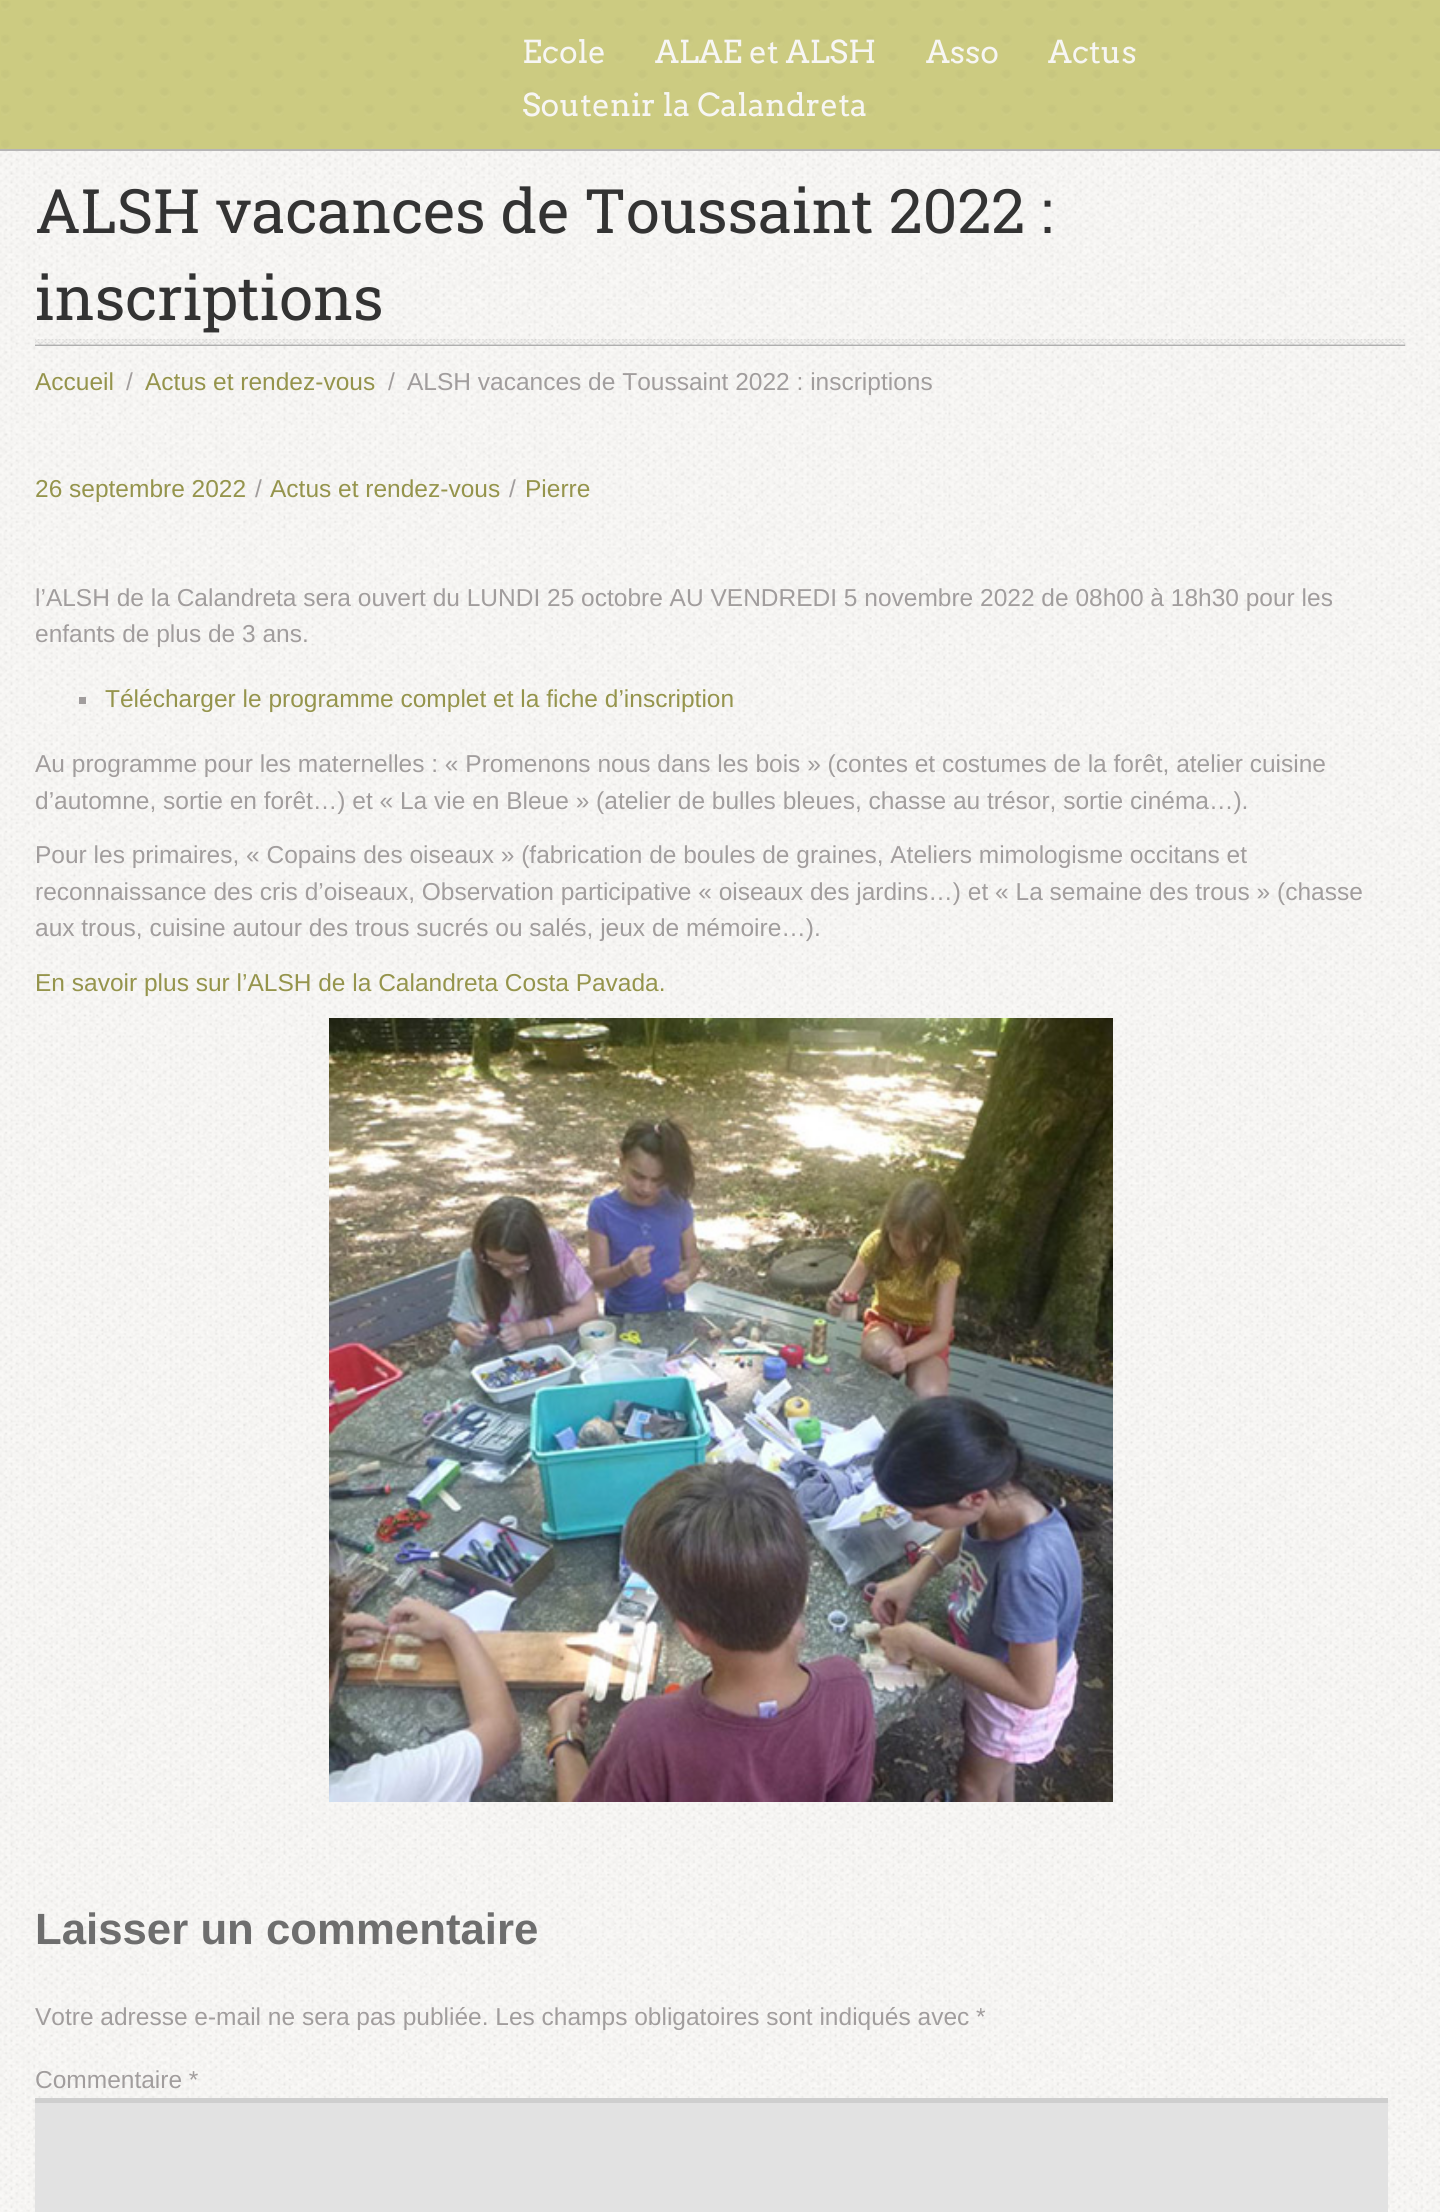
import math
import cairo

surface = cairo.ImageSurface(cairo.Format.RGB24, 1440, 2212)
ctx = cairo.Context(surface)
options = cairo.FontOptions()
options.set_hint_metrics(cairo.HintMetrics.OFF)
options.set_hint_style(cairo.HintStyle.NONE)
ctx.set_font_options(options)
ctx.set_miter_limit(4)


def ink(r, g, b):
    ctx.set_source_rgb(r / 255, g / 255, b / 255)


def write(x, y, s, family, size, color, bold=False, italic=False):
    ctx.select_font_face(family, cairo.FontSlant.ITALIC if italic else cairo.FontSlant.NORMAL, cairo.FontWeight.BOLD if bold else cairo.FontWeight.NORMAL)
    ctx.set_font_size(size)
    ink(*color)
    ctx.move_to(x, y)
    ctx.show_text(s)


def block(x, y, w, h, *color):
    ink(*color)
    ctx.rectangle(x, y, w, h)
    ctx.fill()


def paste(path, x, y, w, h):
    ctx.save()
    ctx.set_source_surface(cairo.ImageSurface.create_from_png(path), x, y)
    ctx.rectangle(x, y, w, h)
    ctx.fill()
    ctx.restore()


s1 = dict(family="Arvo", size=31.5, color=(247, 246, 244))
s2 = dict(family="Roboto Slab", size=61.25, color=(51, 51, 51))
s3 = dict(family="Liberation Sans", size=24.5, color=(149, 148, 76))
s4 = dict(family="Liberation Sans", size=24.5, color=(161, 157, 157))
s5 = dict(family="Liberation Sans", size=43.75, color=(110, 110, 110), bold=True)

ink(255, 255, 255)
ctx.paint()
block(0, 0, 1440, 149, 204, 203, 129)
paste("pic1.png", 1, 1, 1439, 148)
block(0, 149, 1440, 2, 182, 181, 181)
write(522, 63, "Ecole", **s1)
write(655, 63, "ALAE et ALSH", **s1)
write(926, 63, "Asso", **s1)
write(1048, 63, "Actus", **s1)
write(522, 116, "Soutenir la Calandreta", **s1)
paste("pic2.png", 0, 151, 1440, 2061)
write(35, 233, "ALSH vacances de Toussaint 2022 :", **s2)
write(35, 320, "inscriptions", **s2)
paste("pic3.png", 35, 339, 1371, 7)
write(35, 390, "Accueil", **s3)
write(126, 390, "/", **s4)
write(145, 390, "Actus et rendez-vous", **s3)
write(388, 390, "/", **s4)
write(407, 390, "ALSH vacances de Toussaint 2022 : inscriptions", **s4)
write(35, 497, "26 septembre 2022", **s3)
write(255, 497, "/", **s4)
write(270, 497, "Actus et rendez-vous", **s3)
write(509, 497, "/", **s4)
write(525, 497, "Pierre", **s3)
write(35, 606, "l’ALSH de la Calandreta sera ouvert du LUNDI 25 octobre AU VENDREDI 5 novembre 2022 de 08h00 à 18h30 pour les", **s4)
write(35, 642, "enfants de plus de 3 ans.", **s4)
block(79, 697, 7, 7, 161, 157, 157)
write(105, 707, "Télécharger le programme complet et la fiche d’inscription", **s3)
write(35, 772, "Au programme pour les maternelles : « Promenons nous dans les bois » (contes et costumes de la forêt, atelier cuisine", **s4)
write(35, 809, "d’automne, sortie en forêt…) et « La vie en Bleue » (atelier de bulles bleues, chasse au trésor, sortie cinéma…).", **s4)
write(35, 863, "Pour les primaires, « Copains des oiseaux » (fabrication de boules de graines, Ateliers mimologisme occitans et", **s4)
write(35, 900, "reconnaissance des cris d’oiseaux, Observation participative « oiseaux des jardins…) et « La semaine des trous » (chasse", **s4)
write(35, 936, "aux trous, cuisine autour des trous sucrés ou salés, jeux de mémoire…).", **s4)
write(35, 991, "En savoir plus sur l’ALSH de la Calandreta Costa Pavada.", **s3)
paste("pic4.png", 329, 1018, 784, 784)
write(35, 1944, "Laisser un commentaire", **s5)
write(35, 2025, "Votre adresse e-mail ne sera pas publiée. Les champs obligatoires sont indiqués avec *", **s4)
write(35, 2088, "Commentaire *", **s4)
block(35, 2103, 1353, 109, 226, 226, 226)
block(35, 2098, 1353, 5, 206, 206, 206)
surface.write_to_png("screenshot.png")
